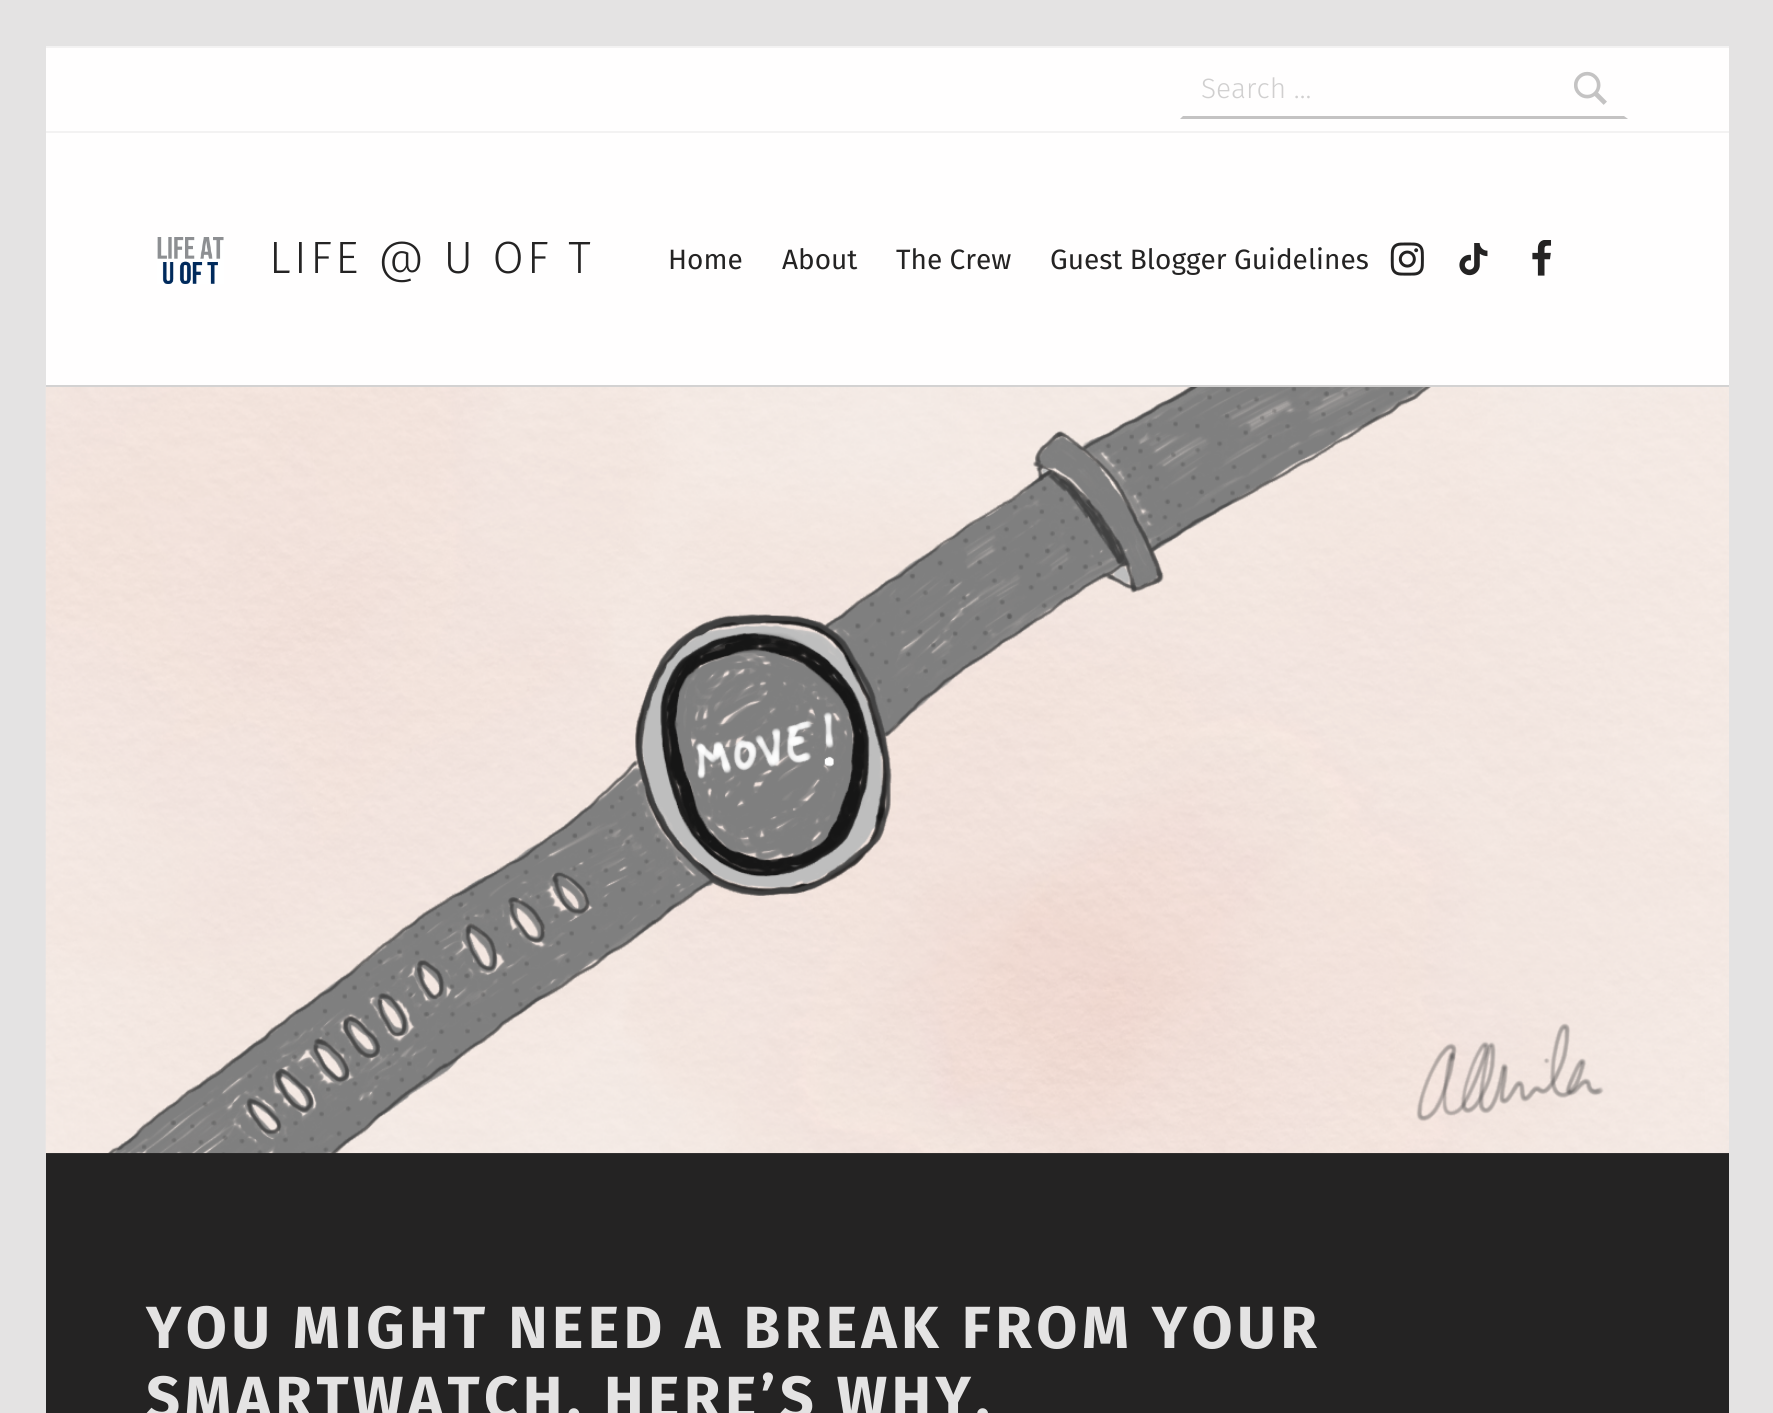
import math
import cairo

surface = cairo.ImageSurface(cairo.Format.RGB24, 1773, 1413)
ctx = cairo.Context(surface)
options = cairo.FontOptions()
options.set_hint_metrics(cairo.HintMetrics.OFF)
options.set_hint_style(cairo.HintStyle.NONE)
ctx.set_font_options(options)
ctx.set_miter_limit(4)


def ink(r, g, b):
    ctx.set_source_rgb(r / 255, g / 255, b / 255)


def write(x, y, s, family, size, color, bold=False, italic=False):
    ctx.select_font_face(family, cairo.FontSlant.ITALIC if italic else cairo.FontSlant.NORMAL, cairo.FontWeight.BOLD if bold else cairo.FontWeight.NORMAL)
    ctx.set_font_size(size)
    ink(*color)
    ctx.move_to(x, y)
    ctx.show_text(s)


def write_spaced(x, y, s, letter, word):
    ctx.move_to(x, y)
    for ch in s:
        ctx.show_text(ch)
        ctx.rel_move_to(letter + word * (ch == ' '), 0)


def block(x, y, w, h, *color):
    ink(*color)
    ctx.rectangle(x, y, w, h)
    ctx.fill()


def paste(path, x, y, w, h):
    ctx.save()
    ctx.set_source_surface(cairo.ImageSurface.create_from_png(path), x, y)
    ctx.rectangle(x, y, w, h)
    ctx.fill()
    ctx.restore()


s1 = dict(family="Fira Sans Light", size=28, color=(208, 207, 207))
s2 = dict(family="Fira Sans", size=28, color=(36, 35, 35))

ink(228, 227, 227)
ctx.paint()
block(46, 48, 1683, 83, 255, 254, 254)
block(46, 46, 1683, 2, 243, 242, 242)
block(46, 131, 1683, 2, 243, 242, 242)
ink(196, 195, 195)
ctx.new_path()
ctx.move_to(1628, 119)
ctx.line_to(1180, 119)
ctx.line_to(1183, 116)
ctx.line_to(1624, 116)
ctx.close_path()
ctx.fill()
write(1201, 98, "Search …", **s1)
paste("pic1.png", 1574, 71, 33, 34)
block(46, 133, 1683, 252, 255, 254, 254)
block(46, 385, 1683, 2, 211, 210, 210)
paste("pic2.png", 157, 237, 67, 47)
ctx.set_font_size(45.25)
ink(36, 35, 35)
write_spaced(269, 273, "LIFE @ U OF T", 3.4, 0)
write(668, 269, "Home", **s2)
write(782, 269, "About", **s2)
write(896, 269, "The Crew", **s2)
write(1050, 269, "Guest Blogger Guidelines", **s2)
paste("pic3.png", 1390, 242, 34, 34)
paste("pic4.png", 1459, 243, 29, 33)
paste("pic5.png", 1532, 240, 20, 36)
block(46, 1153, 1683, 260, 36, 35, 35)
paste("pic6.png", 45, 387, 1684, 767)
ctx.select_font_face("Fira Sans", cairo.FontSlant.NORMAL, cairo.FontWeight.BOLD)
ctx.set_font_size(59.5)
ink(228, 227, 227)
write_spaced(146, 1348, "YOU MIGHT NEED A BREAK FROM YOUR", 4.45, 0)
write_spaced(146, 1418, "SMARTWATCH. HERE’S WHY.", 4.45, 0)
surface.write_to_png("screenshot.png")
